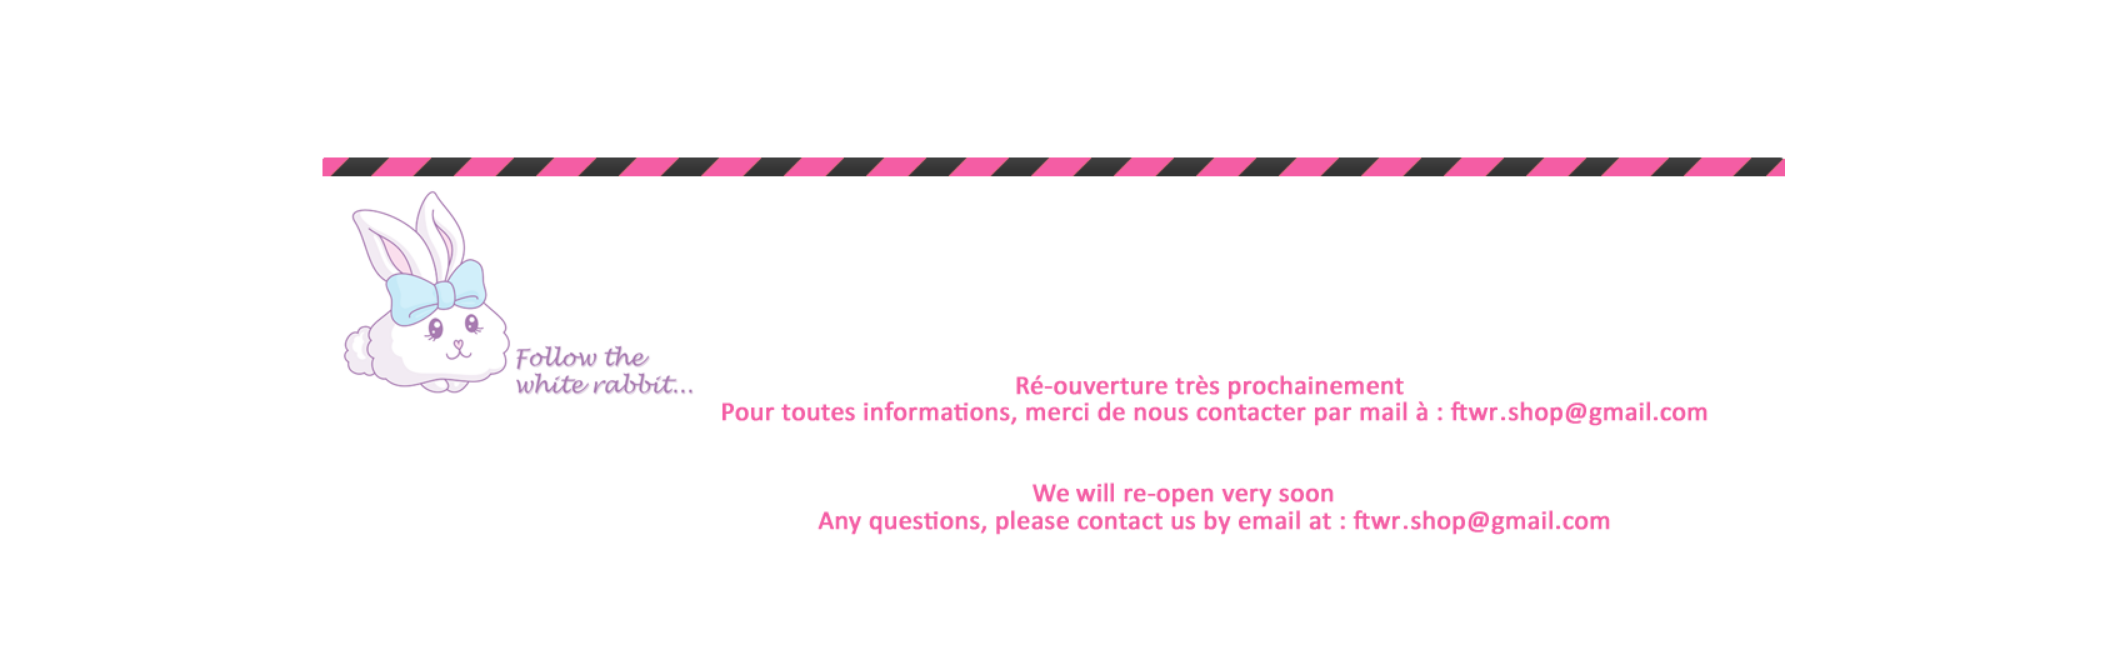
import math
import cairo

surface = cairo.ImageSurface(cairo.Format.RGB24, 2107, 655)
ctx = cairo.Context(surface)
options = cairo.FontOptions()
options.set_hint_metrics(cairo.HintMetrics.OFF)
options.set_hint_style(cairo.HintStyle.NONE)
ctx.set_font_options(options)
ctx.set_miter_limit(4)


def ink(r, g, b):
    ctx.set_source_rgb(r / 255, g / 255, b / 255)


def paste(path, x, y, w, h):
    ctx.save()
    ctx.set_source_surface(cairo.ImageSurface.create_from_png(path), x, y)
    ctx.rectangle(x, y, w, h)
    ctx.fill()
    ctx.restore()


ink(255, 255, 255)
ctx.paint()
paste("pic1.png", 322, 157, 1463, 379)
surface.write_to_png("screenshot.png")
